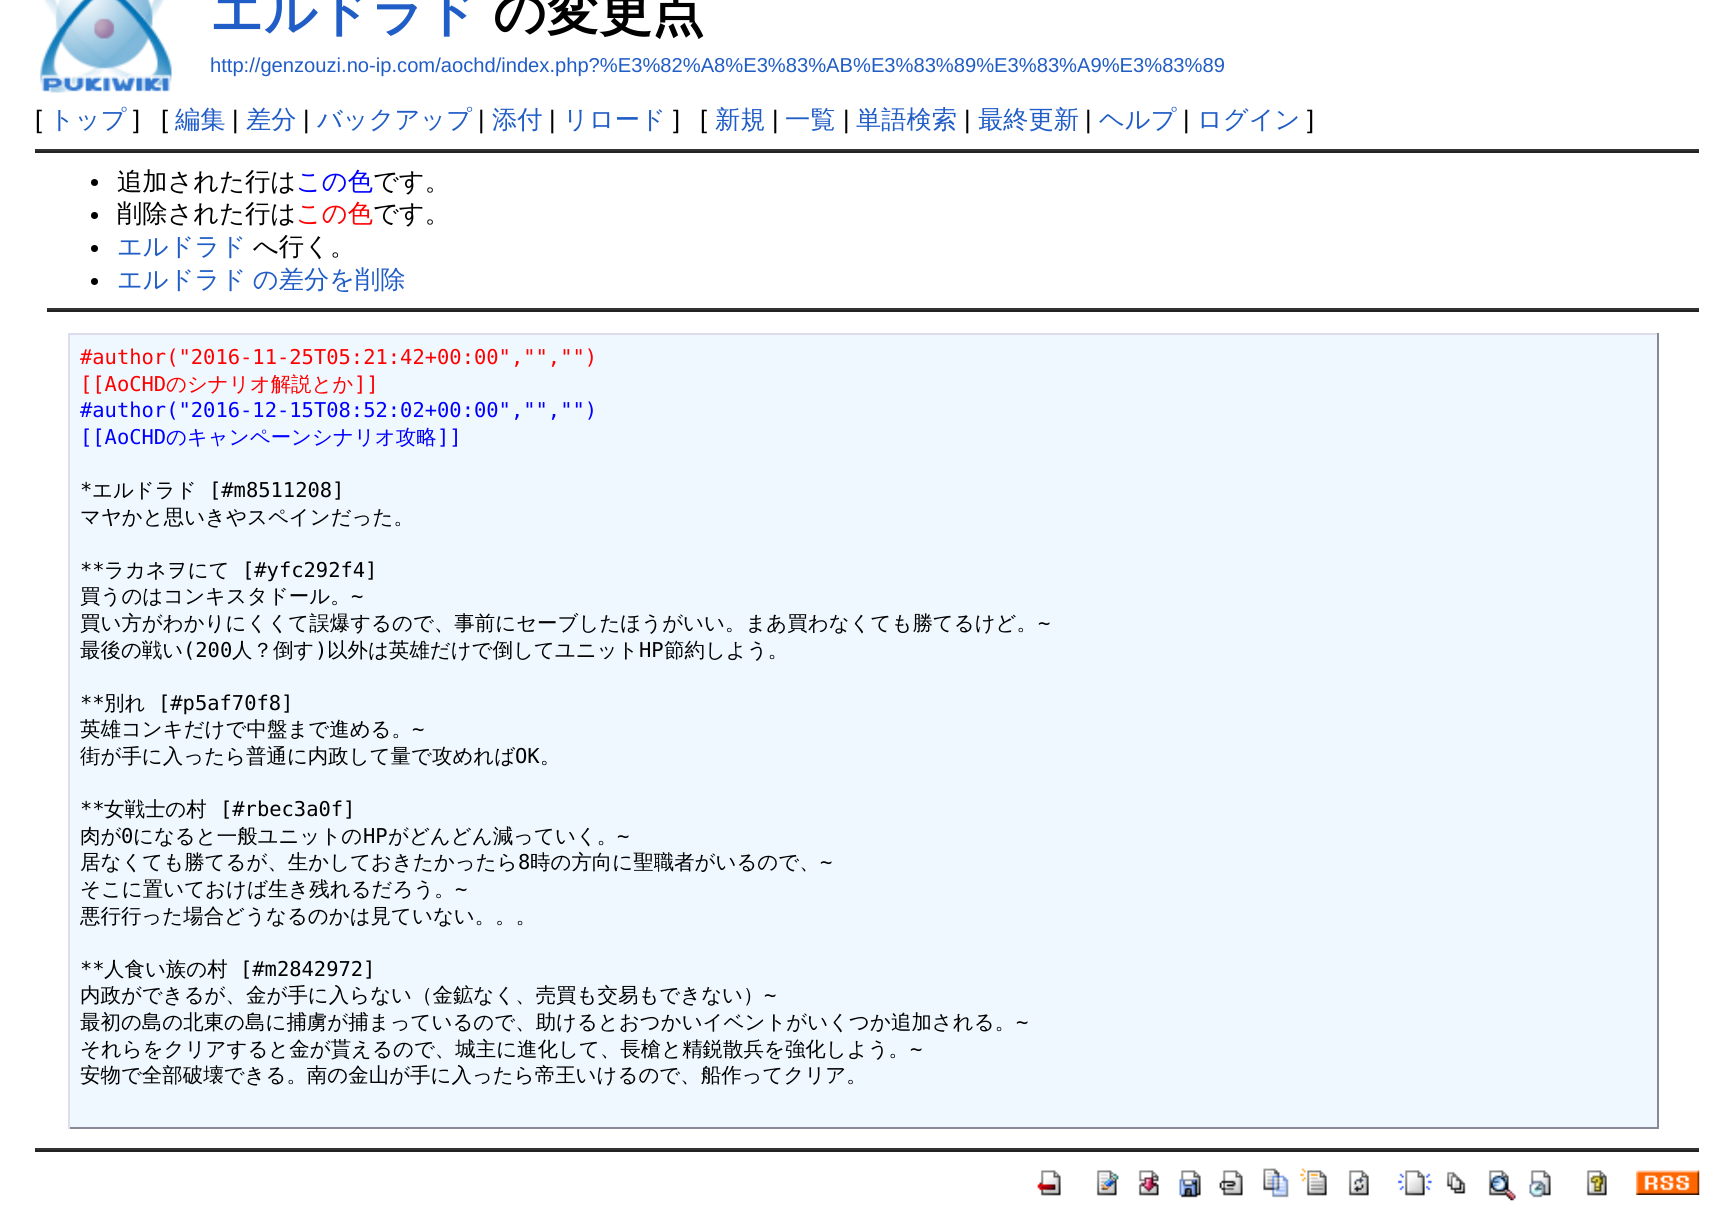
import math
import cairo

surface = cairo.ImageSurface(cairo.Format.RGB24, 1733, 1223)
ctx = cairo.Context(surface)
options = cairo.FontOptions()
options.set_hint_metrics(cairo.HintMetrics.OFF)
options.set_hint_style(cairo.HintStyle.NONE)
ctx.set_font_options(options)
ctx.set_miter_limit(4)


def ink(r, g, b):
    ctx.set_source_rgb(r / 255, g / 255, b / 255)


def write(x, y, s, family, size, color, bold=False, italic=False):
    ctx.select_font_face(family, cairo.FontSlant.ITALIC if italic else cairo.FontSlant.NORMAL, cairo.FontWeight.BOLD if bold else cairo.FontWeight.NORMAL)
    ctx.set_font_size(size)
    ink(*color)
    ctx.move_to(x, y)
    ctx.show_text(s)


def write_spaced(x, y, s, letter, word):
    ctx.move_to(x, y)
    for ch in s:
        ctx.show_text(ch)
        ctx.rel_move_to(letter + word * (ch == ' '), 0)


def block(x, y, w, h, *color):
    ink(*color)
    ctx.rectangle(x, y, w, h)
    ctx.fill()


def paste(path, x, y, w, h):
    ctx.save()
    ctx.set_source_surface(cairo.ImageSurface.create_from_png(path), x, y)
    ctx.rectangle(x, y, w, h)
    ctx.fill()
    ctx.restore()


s1 = dict(family="WenQuanYi Zen Hei", size=52.5, color=(33, 93, 198), bold=True)
s2 = dict(family="WenQuanYi Zen Hei", size=52.5, color=(0, 0, 0), bold=True)
s3 = dict(family="Liberation Sans", size=20.15, color=(33, 93, 198))
s4 = dict(family="Liberation Sans", size=25.25, color=(0, 0, 0))
s5 = dict(family="WenQuanYi Zen Hei Medium", size=25.25, color=(33, 93, 198))
s6 = dict(family="WenQuanYi Zen Hei Medium", size=25.25, color=(0, 0, 0))
s7 = dict(family="WenQuanYi Zen Hei Medium", size=25.25, color=(0, 0, 255))
s8 = dict(family="WenQuanYi Zen Hei Medium", size=25.25, color=(255, 0, 0))
s9 = dict(family="DejaVu Sans Mono", size=20.45, color=(255, 0, 0))
s10 = dict(family="WenQuanYi Zen Hei Medium", size=20.45, color=(255, 0, 0))
s11 = dict(family="DejaVu Sans Mono", size=20.45, color=(0, 0, 255))
s12 = dict(family="WenQuanYi Zen Hei Medium", size=20.45, color=(0, 0, 255))
s13 = dict(family="DejaVu Sans Mono", size=20.45, color=(0, 0, 0))
s14 = dict(family="WenQuanYi Zen Hei Medium", size=20.45, color=(0, 0, 0))

ink(255, 255, 255)
ctx.paint()
paste("pic1.png", 39, 0, 133, 93)
write(210, 30, "エルドラド", **s1)
write(493, 30, "の変更点", **s2)
write(210, 72, "http://genzouzi.no-ip.com/aochd/index.php?%E3%82%A8%E3%83%AB%E3%83%89%E3%83%A9%E3%83%89", **s3)
write(35, 128, "[", **s4)
write(49, 128, "トップ", **s5)
write(133, 128, "]", **s4)
write(161, 128, "[", **s4)
write(175, 128, "編集", **s5)
write(232, 128, "|", **s4)
write(246, 128, "差分", **s5)
write(303, 128, "|", **s4)
write(317, 128, "バックアップ", **s5)
write(478, 128, "|", **s4)
write(492, 128, "添付", **s5)
write(549, 128, "|", **s4)
write(563, 128, "リロード", **s5)
write(673, 128, "]", **s4)
write(700, 128, "[", **s4)
write(715, 128, "新規", **s5)
write(772, 128, "|", **s4)
write(785, 128, "一覧", **s5)
write(843, 128, "|", **s4)
write(856, 128, "単語検索", **s5)
write(964, 128, "|", **s4)
write(978, 128, "最終更新", **s5)
write(1085, 128, "|", **s4)
write(1099, 128, "ヘルプ", **s5)
write(1183, 128, "|", **s4)
write(1197, 128, "ログイン", **s5)
write(1307, 128, "]", **s4)
block(35, 149, 1664, 2, 51, 51, 51)
block(35, 151, 1664, 2, 34, 34, 34)
ink(0, 0, 0)
ctx.new_path()
ctx.arc(94.5, 182.5, 3.5, 0, 2 * math.pi)
ctx.fill()
write(117, 190, "追加された行は", **s6)
write(296, 190, "この色", **s7)
write(373, 190, "です。", **s6)
ctx.new_path()
ctx.arc(94.5, 215.5, 3.5, 0, 2 * math.pi)
ctx.fill()
write(117, 222, "削除された行は", **s6)
write(296, 222, "この色", **s8)
write(373, 222, "です。", **s6)
ctx.new_path()
ctx.arc(94.5, 248.5, 3.5, 0, 2 * math.pi)
ctx.fill()
write(117, 255, "エルドラド", **s5)
write(253, 255, "へ行く。", **s6)
ctx.new_path()
ctx.arc(94.5, 281.5, 3.5, 0, 2 * math.pi)
ctx.fill()
ink(33, 93, 198)
write_spaced(117, 288, "エルドラド の差分を削除", 0, -1)
block(47, 308, 1652, 2, 51, 51, 51)
block(47, 310, 1652, 2, 34, 34, 34)
block(70, 335, 1587, 792, 240, 248, 255)
block(68, 333, 1591, 2, 221, 221, 238)
block(1657, 333, 2, 796, 136, 136, 153)
block(68, 1127, 1591, 2, 136, 136, 153)
block(68, 333, 2, 796, 221, 221, 238)
write(80, 364, "#author(\"2016-11-25T05:21:42+00:00\",\"\",\"\")", **s9)
write(80, 391, "[[AoCHD", **s9)
write(166, 391, "のシナリオ解説とか", **s10)
write(354, 391, "]]", **s9)
write(80, 417, "#author(\"2016-12-15T08:52:02+00:00\",\"\",\"\")", **s11)
write(80, 444, "[[AoCHD", **s11)
write(166, 444, "のキャンペーンシナリオ攻略", **s12)
write(437, 444, "]]", **s11)
write(80, 497, "*", **s13)
write(92, 497, "エルドラド", **s14)
write(209, 497, "[#m8511208]", **s13)
write(80, 524, "マヤかと思いきやスペインだった。", **s14)
write(80, 577, "**", **s13)
write(104, 577, "ラカネヲにて", **s14)
write(242, 577, "[#yfc292f4]", **s13)
write(80, 603, "買うのはコンキスタドール。", **s14)
write(351, 603, "~", **s13)
write(80, 630, "買い方がわかりにくくて誤爆するので、事前にセーブしたほうがいい。まあ買わなくても勝てるけど。", **s14)
write(1038, 630, "~", **s13)
write(80, 657, "最後の戦い", **s14)
write(183, 657, "(200", **s13)
write(232, 657, "人？倒す", **s14)
write(315, 657, ")", **s13)
write(327, 657, "以外は英雄だけで倒してユニット", **s14)
write(639, 657, "HP", **s13)
write(664, 657, "節約しよう。", **s14)
write(80, 710, "**", **s13)
write(104, 710, "別れ", **s14)
write(158, 710, "[#p5af70f8]", **s13)
write(80, 736, "英雄コンキだけで中盤まで進める。", **s14)
write(412, 736, "~", **s13)
write(80, 763, "街が手に入ったら普通に内政して量で攻めれば", **s14)
write(515, 763, "OK", **s13)
write(540, 763, "。", **s14)
write(80, 816, "**", **s13)
write(104, 816, "女戦士の村", **s14)
write(220, 816, "[#rbec3a0f]", **s13)
write(80, 843, "肉が", **s14)
write(121, 843, "0", **s13)
write(133, 843, "になると一般ユニットの", **s14)
write(363, 843, "HP", **s13)
write(388, 843, "がどんどん減っていく。", **s14)
write(617, 843, "~", **s13)
write(80, 869, "居なくても勝てるが、生かしておきたかったら", **s14)
write(518, 869, "8", **s13)
write(530, 869, "時の方向に聖職者がいるので、", **s14)
write(820, 869, "~", **s13)
write(80, 896, "そこに置いておけば生き残れるだろう。", **s14)
write(455, 896, "~", **s13)
write(80, 923, "悪行行った場合どうなるのかは見ていない。。。", **s14)
write(80, 976, "**", **s13)
write(104, 976, "人食い族の村", **s14)
write(240, 976, "[#m2842972]", **s13)
write(80, 1002, "内政ができるが、金が手に入らない（金鉱なく、売買も交易もできない）", **s14)
write(764, 1002, "~", **s13)
write(80, 1029, "最初の島の北東の島に捕虜が捕まっているので、助けるとおつかいイベントがいくつか追加される。", **s14)
write(1016, 1029, "~", **s13)
write(80, 1056, "それらをクリアすると金が貰えるので、城主に進化して、長槍と精鋭散兵を強化しよう。", **s14)
write(910, 1056, "~", **s13)
write(80, 1082, "安物で全部破壊できる。南の金山が手に入ったら帝王いけるので、船作ってクリア。", **s14)
block(35, 1148, 1664, 2, 51, 51, 51)
block(35, 1150, 1664, 2, 34, 34, 34)
paste("pic2.png", 1037, 1170, 24, 26)
paste("pic3.png", 1096, 1170, 23, 26)
paste("pic4.png", 1138, 1170, 21, 26)
paste("pic5.png", 1179, 1170, 22, 28)
paste("pic6.png", 1219, 1170, 24, 26)
paste("pic7.png", 1263, 1168, 26, 30)
paste("pic8.png", 1300, 1168, 27, 28)
paste("pic9.png", 1348, 1170, 21, 26)
paste("pic10.png", 1398, 1170, 34, 26)
paste("pic11.png", 1446, 1171, 20, 23)
paste("pic12.png", 1488, 1170, 28, 31)
paste("pic13.png", 1529, 1170, 22, 28)
paste("pic14.png", 1586, 1170, 21, 26)
paste("pic15.png", 1636, 1170, 64, 25)
surface.write_to_png("screenshot.png")
